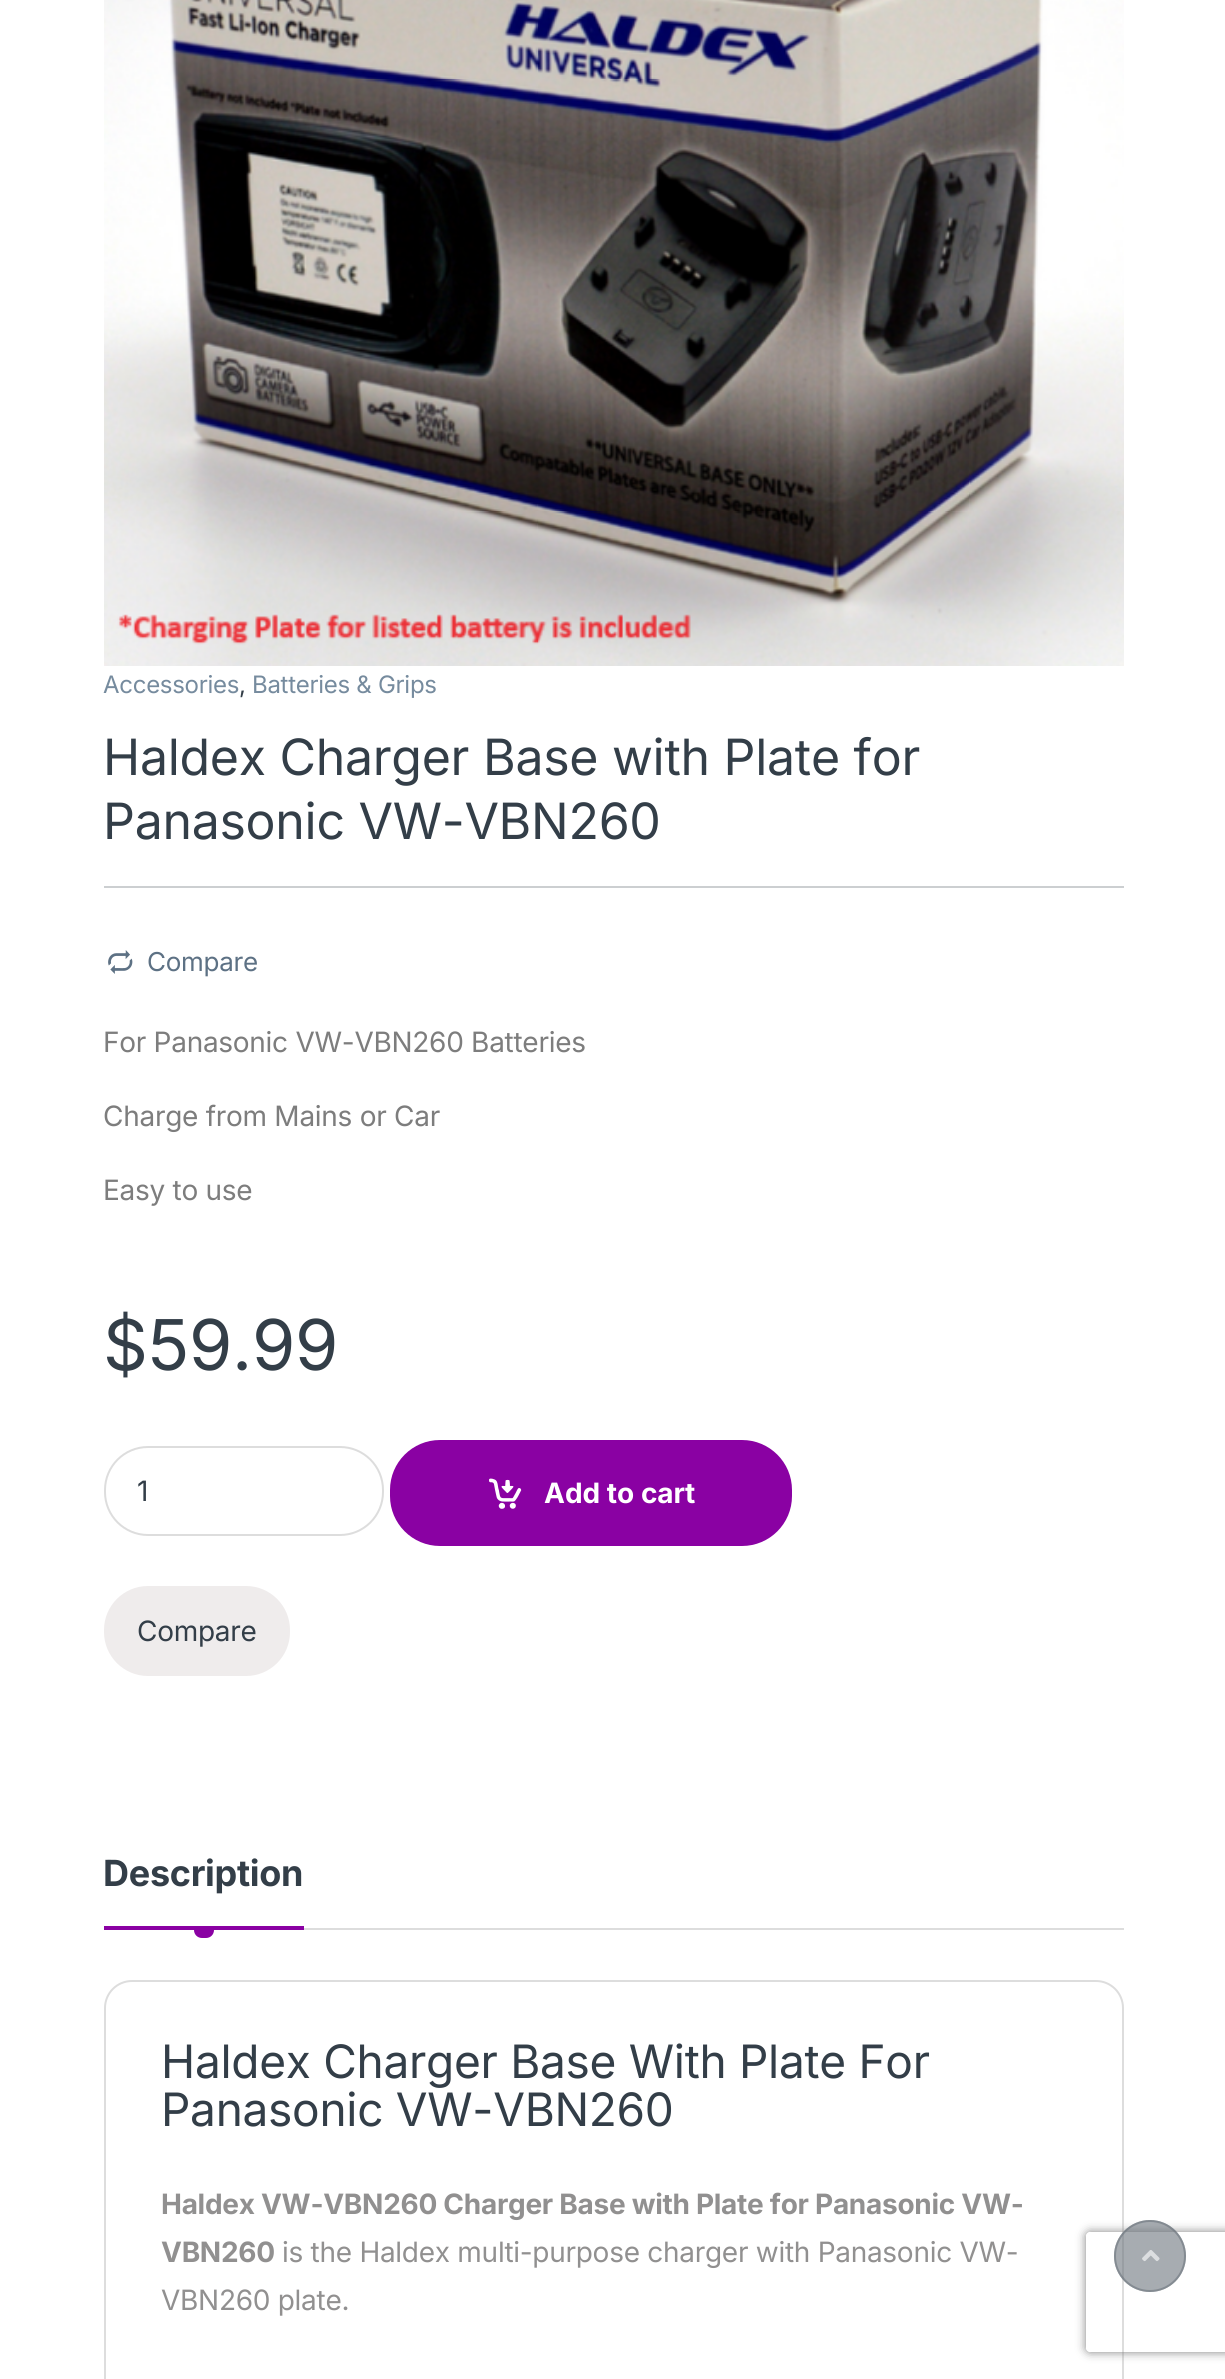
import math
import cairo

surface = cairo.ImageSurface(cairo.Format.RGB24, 1225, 2379)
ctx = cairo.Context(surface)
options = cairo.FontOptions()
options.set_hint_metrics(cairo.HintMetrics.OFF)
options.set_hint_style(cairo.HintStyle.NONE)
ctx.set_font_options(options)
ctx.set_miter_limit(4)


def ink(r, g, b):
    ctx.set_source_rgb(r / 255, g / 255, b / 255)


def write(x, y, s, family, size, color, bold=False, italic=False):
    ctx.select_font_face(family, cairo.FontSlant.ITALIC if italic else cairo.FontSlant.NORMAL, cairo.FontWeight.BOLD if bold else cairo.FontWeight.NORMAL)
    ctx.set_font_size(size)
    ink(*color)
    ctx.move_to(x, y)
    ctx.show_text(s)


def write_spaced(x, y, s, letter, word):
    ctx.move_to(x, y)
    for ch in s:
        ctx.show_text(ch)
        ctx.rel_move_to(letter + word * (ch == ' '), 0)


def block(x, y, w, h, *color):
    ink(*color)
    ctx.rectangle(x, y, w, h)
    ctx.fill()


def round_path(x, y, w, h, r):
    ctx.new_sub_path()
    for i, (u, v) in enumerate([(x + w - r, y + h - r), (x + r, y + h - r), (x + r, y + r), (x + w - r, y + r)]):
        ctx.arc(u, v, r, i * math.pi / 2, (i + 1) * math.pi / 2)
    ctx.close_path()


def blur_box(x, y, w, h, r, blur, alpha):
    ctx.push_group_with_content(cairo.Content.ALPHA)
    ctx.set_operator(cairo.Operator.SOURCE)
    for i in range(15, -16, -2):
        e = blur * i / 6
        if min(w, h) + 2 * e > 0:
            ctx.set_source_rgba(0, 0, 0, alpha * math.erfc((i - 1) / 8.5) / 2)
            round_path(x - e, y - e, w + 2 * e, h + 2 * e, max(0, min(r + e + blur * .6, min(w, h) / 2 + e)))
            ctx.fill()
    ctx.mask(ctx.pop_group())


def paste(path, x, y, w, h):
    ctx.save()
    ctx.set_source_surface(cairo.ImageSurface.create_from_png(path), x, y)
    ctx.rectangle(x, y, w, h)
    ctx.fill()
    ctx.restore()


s1 = dict(family="Inter", size=28, color=(51, 62, 72))
s2 = dict(family="Inter", size=28, color=(255, 255, 255), bold=True)

ink(255, 255, 255)
ctx.paint()
paste("pic1.png", 104, 0, 1020, 666)
ctx.select_font_face("Inter")
ctx.set_font_size(24)
ink(118, 139, 158)
write_spaced(103, 693, "Accessories", -0.28, 0)
ink(51, 62, 72)
write_spaced(239, 693, ",", -0.28, 0)
ink(118, 139, 158)
write_spaced(252, 693, "Batteries & Grips", -0.28, 0)
ctx.set_font_size(50)
ink(51, 62, 72)
write_spaced(103, 775, "Haldex Charger Base with Plate for", -0.28, 0)
write_spaced(103, 839, "Panasonic VW-VBN260", -0.28, 0)
block(104, 886, 1020, 2, 204, 207, 209)
paste("pic2.png", 108, 950, 25, 24)
ctx.set_font_size(26)
ink(93, 113, 132)
write_spaced(147, 971, "Compare", -0.28, 0)
ctx.set_font_size(28)
ink(125, 125, 125)
write_spaced(103, 1052, "For Panasonic VW-VBN260 Batteries", -0.28, 0)
write_spaced(103, 1126, "Charge from Mains or Car", -0.28, 0)
write_spaced(103, 1200, "Easy to use", -0.28, 0)
ctx.set_font_size(70)
ink(51, 62, 72)
write_spaced(103, 1370, "$59.99", -0.28, 0)
round_path(105, 1447, 278, 88, 43)
ink(221, 221, 221)
ctx.stroke()
write(137, 1501, "1", **s1)
ink(138, 1, 163)
round_path(390, 1440, 402, 106, 50)
ctx.fill()
paste("pic3.png", 489, 1478, 33, 31)
write(544, 1503, "Add to cart", **s2)
ink(239, 236, 236)
round_path(105, 1587, 184, 88, 43)
ctx.fill_preserve()
ctx.stroke()
ctx.select_font_face("Inter")
ink(51, 62, 72)
write_spaced(137, 1641, "Compare", -0.28, 0)
ctx.select_font_face("Inter", cairo.FontSlant.NORMAL, cairo.FontWeight.BOLD)
ctx.set_font_size(36)
write_spaced(103, 1886, "Description", -0.28, 0)
block(104, 1926, 200, 4, 138, 1, 163)
ctx.new_path()
ctx.move_to(194, 1930)
ctx.line_to(214, 1930)
ctx.curve_to(214, 1934.5, 210.5, 1938, 206, 1938)
ctx.line_to(202, 1938)
ctx.curve_to(197.5, 1938, 194, 1934.5, 194, 1930)
ctx.close_path()
ctx.fill()
block(304, 1928, 820, 2, 221, 221, 221)
round_path(105, 1981, 1018, 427, 27)
ctx.stroke()
ctx.select_font_face("Inter")
ctx.set_font_size(46)
ink(51, 62, 72)
write_spaced(161, 2078, "Haldex Charger Base With Plate For", -0.28, 0)
write_spaced(161, 2126, "Panasonic VW-VBN260", -0.28, 0)
ctx.select_font_face("Inter", cairo.FontSlant.NORMAL, cairo.FontWeight.BOLD)
ctx.set_font_size(28)
ink(145, 144, 144)
write_spaced(161, 2214, "Haldex VW-VBN260 Charger Base with Plate for Panasonic VW-", -0.28, 0)
write_spaced(161, 2262, "VBN260", -0.28, 0)
ctx.select_font_face("Inter")
write_spaced(282, 2262, "is the Haldex multi-purpose charger with Panasonic VW-", -0.28, 0)
write_spaced(161, 2310, "VBN260 plate.", -0.28, 0)
ctx.save()
ctx.set_fill_rule(cairo.FillRule.EVEN_ODD)
ctx.new_path()
ctx.move_to(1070, 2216)
ctx.line_to(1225, 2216)
ctx.line_to(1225, 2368)
ctx.line_to(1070, 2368)
ctx.close_path()
ctx.move_to(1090, 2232)
ctx.line_to(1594, 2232)
ctx.curve_to(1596, 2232, 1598, 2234, 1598, 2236)
ctx.line_to(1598, 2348)
ctx.curve_to(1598, 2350, 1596, 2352, 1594, 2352)
ctx.line_to(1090, 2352)
ctx.curve_to(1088, 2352, 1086, 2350, 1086, 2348)
ctx.line_to(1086, 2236)
ctx.curve_to(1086, 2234, 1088, 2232, 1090, 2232)
ctx.close_path()
ctx.clip()
ink(128, 128, 128)
blur_box(1086, 2232, 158, 120, 4, 5, 1)
ctx.restore()
ctx.set_source_rgba(0.424, 0.459, 0.49, 0.6)
ctx.arc(1150, 2256, 36, 0, 2 * math.pi)
ctx.fill()
ctx.arc(1150, 2256, 35, 0, 2 * math.pi)
ctx.stroke()
paste("pic4.png", 1142, 2250, 18, 12)
surface.write_to_png("screenshot.png")
